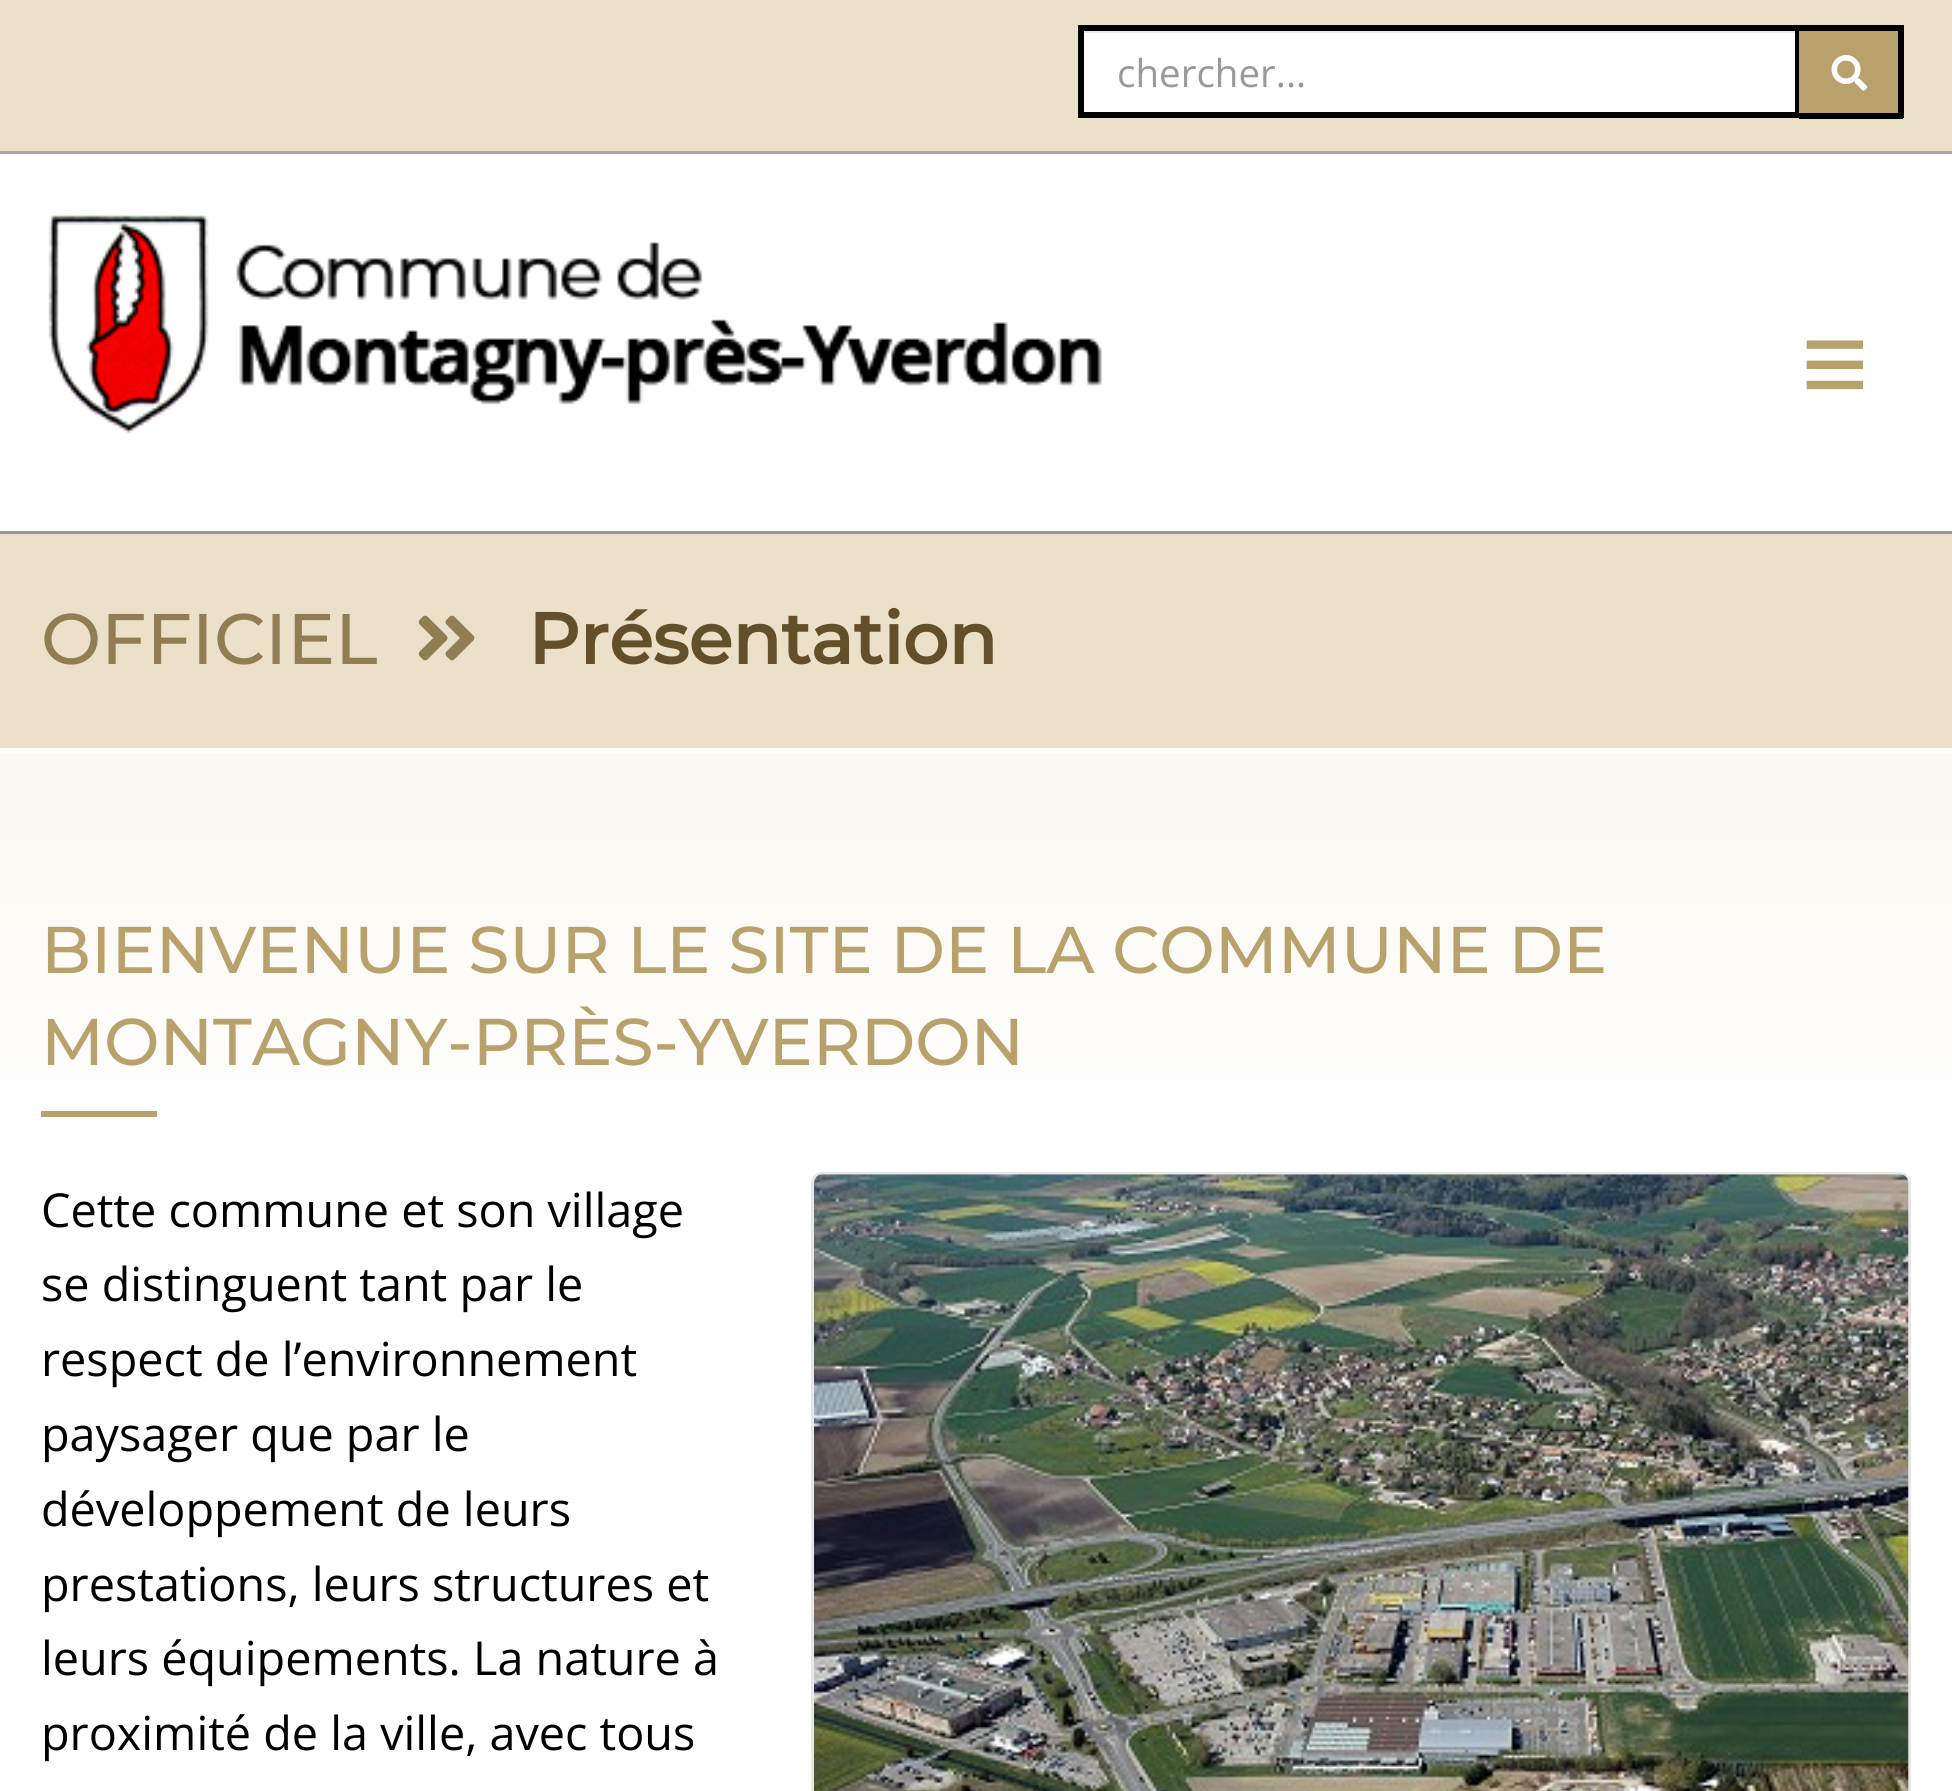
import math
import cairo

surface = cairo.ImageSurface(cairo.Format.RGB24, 1952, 1791)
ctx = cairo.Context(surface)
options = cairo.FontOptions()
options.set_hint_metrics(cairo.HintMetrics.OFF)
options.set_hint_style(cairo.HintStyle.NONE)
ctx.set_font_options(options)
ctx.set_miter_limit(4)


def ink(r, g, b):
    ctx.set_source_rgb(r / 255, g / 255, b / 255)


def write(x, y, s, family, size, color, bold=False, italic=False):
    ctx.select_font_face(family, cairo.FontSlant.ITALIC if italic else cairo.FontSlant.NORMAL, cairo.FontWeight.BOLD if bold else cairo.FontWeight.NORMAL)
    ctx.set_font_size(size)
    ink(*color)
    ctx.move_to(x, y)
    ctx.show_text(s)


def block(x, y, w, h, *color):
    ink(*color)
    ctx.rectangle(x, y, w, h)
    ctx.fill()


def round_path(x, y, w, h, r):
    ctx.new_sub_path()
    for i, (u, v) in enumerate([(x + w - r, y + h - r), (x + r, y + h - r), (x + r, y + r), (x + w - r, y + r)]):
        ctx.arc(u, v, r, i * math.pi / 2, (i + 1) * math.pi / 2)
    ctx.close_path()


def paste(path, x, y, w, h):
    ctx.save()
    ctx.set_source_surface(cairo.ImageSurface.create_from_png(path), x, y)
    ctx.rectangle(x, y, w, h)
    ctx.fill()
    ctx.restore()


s1 = dict(family="Open Sans", size=38.5, color=(153, 153, 153))
s2 = dict(family="Liberation Sans", size=116, color=(185, 161, 107), bold=True)
s3 = dict(family="Montserrat Thin", size=71.5, color=(144, 125, 83))
s4 = dict(family="Montserrat", size=71.5, color=(100, 79, 43), bold=True)
s5 = dict(family="Montserrat Thin", size=66, color=(185, 161, 107))
s6 = dict(family="Open Sans", size=46.75, color=(0, 0, 0))

ink(255, 255, 255)
ctx.paint()
block(0, 0, 1952, 151, 235, 225, 201)
block(0, 151, 1952, 3, 169, 169, 169)
block(1084, 33, 711, 79, 255, 255, 255)
block(1084, 31, 712, 2, 236, 236, 236)
ctx.rectangle(1081, 28, 717, 87)
ink(0, 0, 0)
ctx.set_line_width(6)
ctx.stroke()
write(1117, 87, "chercher...", **s1)
block(1799, 31, 99, 82, 185, 161, 107)
block(1799, 25, 104, 6, 0, 0, 0)
block(1898, 25, 6, 93, 0, 0, 0)
block(1799, 113, 104, 6, 0, 0, 0)
paste("pic1.png", 1831, 55, 37, 36)
block(0, 531, 1952, 3, 152, 150, 150)
paste("pic2.png", 48, 215, 1054, 219)
write(1801, 403, "≡", **s2)
block(0, 534, 1952, 214, 235, 225, 201)
write(41, 664, "OFFICIEL", **s3)
paste("pic3.png", 418, 615, 57, 46)
write(528, 664, "Présentation", **s4)
paste("pic4.png", 0, 754, 1952, 327)
block(41, 1111, 116, 6, 186, 161, 107)
write(41, 973, "BIENVENUE SUR LE SITE DE LA COMMUNE DE", **s5)
write(41, 1065, "MONTAGNY-PRÈS-YVERDON", **s5)
write(41, 1227, "Cette commune et son village", **s6)
write(41, 1301, "se distinguent tant par le", **s6)
write(41, 1376, "respect de l’environnement", **s6)
write(41, 1451, "paysager que par le", **s6)
write(41, 1526, "développement de leurs", **s6)
write(41, 1601, "prestations, leurs structures et", **s6)
write(41, 1675, "leurs équipements. La nature à", **s6)
write(41, 1750, "proximité de la ville, avec tous", **s6)
round_path(812.5, 1173.5, 1097, 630, 9.5)
ink(231, 231, 231)
ctx.set_line_width(3)
ctx.stroke()
paste("pic5.png", 814, 1174, 1095, 617)
surface.write_to_png("screenshot.png")
